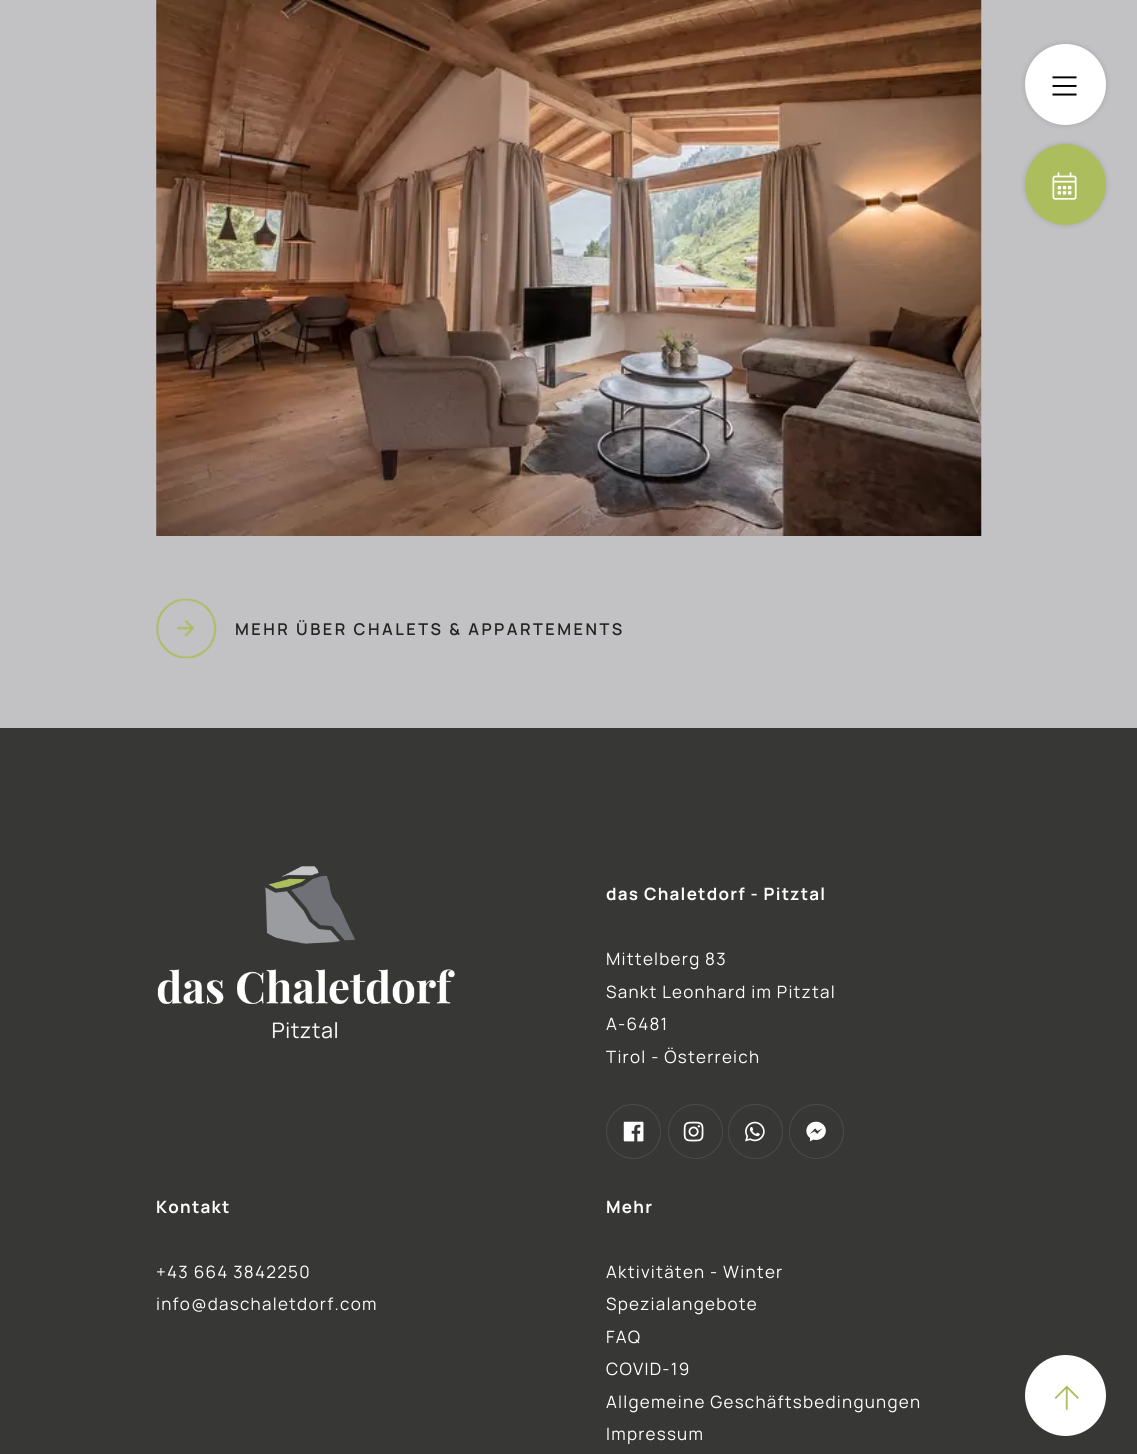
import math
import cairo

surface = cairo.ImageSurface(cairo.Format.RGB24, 1137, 1454)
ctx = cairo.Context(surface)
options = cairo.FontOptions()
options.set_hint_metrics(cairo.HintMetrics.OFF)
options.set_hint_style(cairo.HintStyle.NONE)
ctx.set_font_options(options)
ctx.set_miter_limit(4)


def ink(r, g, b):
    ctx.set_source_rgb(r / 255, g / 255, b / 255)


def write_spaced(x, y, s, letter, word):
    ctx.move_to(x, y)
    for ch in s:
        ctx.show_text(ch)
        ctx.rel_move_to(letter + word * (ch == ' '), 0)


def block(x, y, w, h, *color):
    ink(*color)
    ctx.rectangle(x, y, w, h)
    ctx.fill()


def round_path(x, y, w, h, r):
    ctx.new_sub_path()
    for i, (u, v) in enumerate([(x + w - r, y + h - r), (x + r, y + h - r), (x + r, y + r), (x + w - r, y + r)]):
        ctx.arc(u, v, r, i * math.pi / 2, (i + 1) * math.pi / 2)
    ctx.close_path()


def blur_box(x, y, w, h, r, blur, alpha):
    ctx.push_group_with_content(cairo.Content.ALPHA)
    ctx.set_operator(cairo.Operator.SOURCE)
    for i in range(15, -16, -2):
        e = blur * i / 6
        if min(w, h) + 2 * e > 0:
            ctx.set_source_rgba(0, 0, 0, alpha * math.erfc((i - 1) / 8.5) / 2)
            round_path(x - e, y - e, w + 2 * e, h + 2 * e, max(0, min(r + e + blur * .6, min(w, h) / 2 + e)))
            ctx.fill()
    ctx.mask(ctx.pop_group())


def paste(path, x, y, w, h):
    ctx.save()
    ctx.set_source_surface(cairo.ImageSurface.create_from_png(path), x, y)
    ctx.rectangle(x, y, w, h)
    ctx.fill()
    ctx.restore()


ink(194, 194, 197)
ctx.paint()
ink(0, 0, 0)
blur_box(1025, 44, 81, 81, 40.5, 3, 0.15)
ink(255, 255, 255)
ctx.arc(1065.5, 84.5, 40.5, 0, 2 * math.pi)
ctx.fill()
paste("pic1.png", 1052, 76, 25, 20)
ink(0, 0, 0)
blur_box(1025, 144, 81, 81, 40.5, 3, 0.15)
ink(172, 189, 93)
ctx.arc(1065.5, 184.5, 40.5, 0, 2 * math.pi)
ctx.fill()
paste("pic2.png", 1052, 172, 25, 28)
paste("pic3.png", 156, 0, 826, 536)
paste("pic4.png", 156, 598, 61, 61)
ctx.select_font_face("Manrope SemiBold")
ctx.set_font_size(16.25)
ink(37, 35, 34)
write_spaced(235, 635, "MEHR ÜBER CHALETS & APPARTEMENTS", 2.5, 0)
block(0, 728, 1137, 726, 55, 55, 53)
paste("pic5.png", 157, 866, 298, 173)
ctx.select_font_face("Manrope", cairo.FontSlant.NORMAL, cairo.FontWeight.BOLD)
ctx.set_font_size(17)
ink(255, 255, 255)
write_spaced(606, 900, "das Chaletdorf - Pitztal", 1.25, 0)
ctx.select_font_face("Manrope")
write_spaced(606, 965, "Mittelberg 83", 1.25, 0)
write_spaced(606, 998, "Sankt Leonhard im Pitztal", 1.25, 0)
write_spaced(606, 1030, "A-6481", 1.25, 0)
write_spaced(606, 1063, "Tirol - Österreich", 1.25, 0)
ctx.new_path()
ctx.arc(633.5, 1131.5, 27, 0, 2 * math.pi)
ink(75, 75, 73)
ctx.set_line_width(1)
ctx.stroke()
paste("pic6.png", 623, 1121, 21, 21)
ctx.arc(695.5, 1131.5, 27, 0, 2 * math.pi)
ctx.stroke()
paste("pic7.png", 683, 1121, 21, 21)
ctx.arc(755.5, 1131.5, 27, 0, 2 * math.pi)
ctx.stroke()
paste("pic8.png", 745, 1121, 20, 21)
ctx.arc(816.5, 1131.5, 27, 0, 2 * math.pi)
ctx.stroke()
paste("pic9.png", 806, 1121, 20, 21)
ctx.select_font_face("Manrope", cairo.FontSlant.NORMAL, cairo.FontWeight.BOLD)
ink(255, 255, 255)
write_spaced(156, 1213, "Kontakt", 1.25, 0)
ctx.select_font_face("Manrope")
write_spaced(156, 1278, "+43 664 3842250", 1.25, 0)
write_spaced(156, 1310, "info@daschaletdorf.com", 1.25, 0)
ctx.select_font_face("Manrope", cairo.FontSlant.NORMAL, cairo.FontWeight.BOLD)
write_spaced(606, 1213, "Mehr", 1.25, 0)
ctx.select_font_face("Manrope")
write_spaced(606, 1278, "Aktivitäten - Winter", 1.25, 0)
write_spaced(606, 1310, "Spezialangebote", 1.25, 0)
write_spaced(606, 1343, "FAQ", 1.25, 0)
write_spaced(606, 1375, "COVID-19", 1.25, 0)
write_spaced(606, 1408, "Allgemeine Geschäftsbedingungen", 1.25, 0)
write_spaced(606, 1440, "Impressum", 1.25, 0)
ctx.new_path()
ctx.arc(1065.5, 1395.5, 40.5, 0, 2 * math.pi)
ctx.fill()
paste("pic10.png", 1054, 1385, 25, 25)
surface.write_to_png("screenshot.png")
